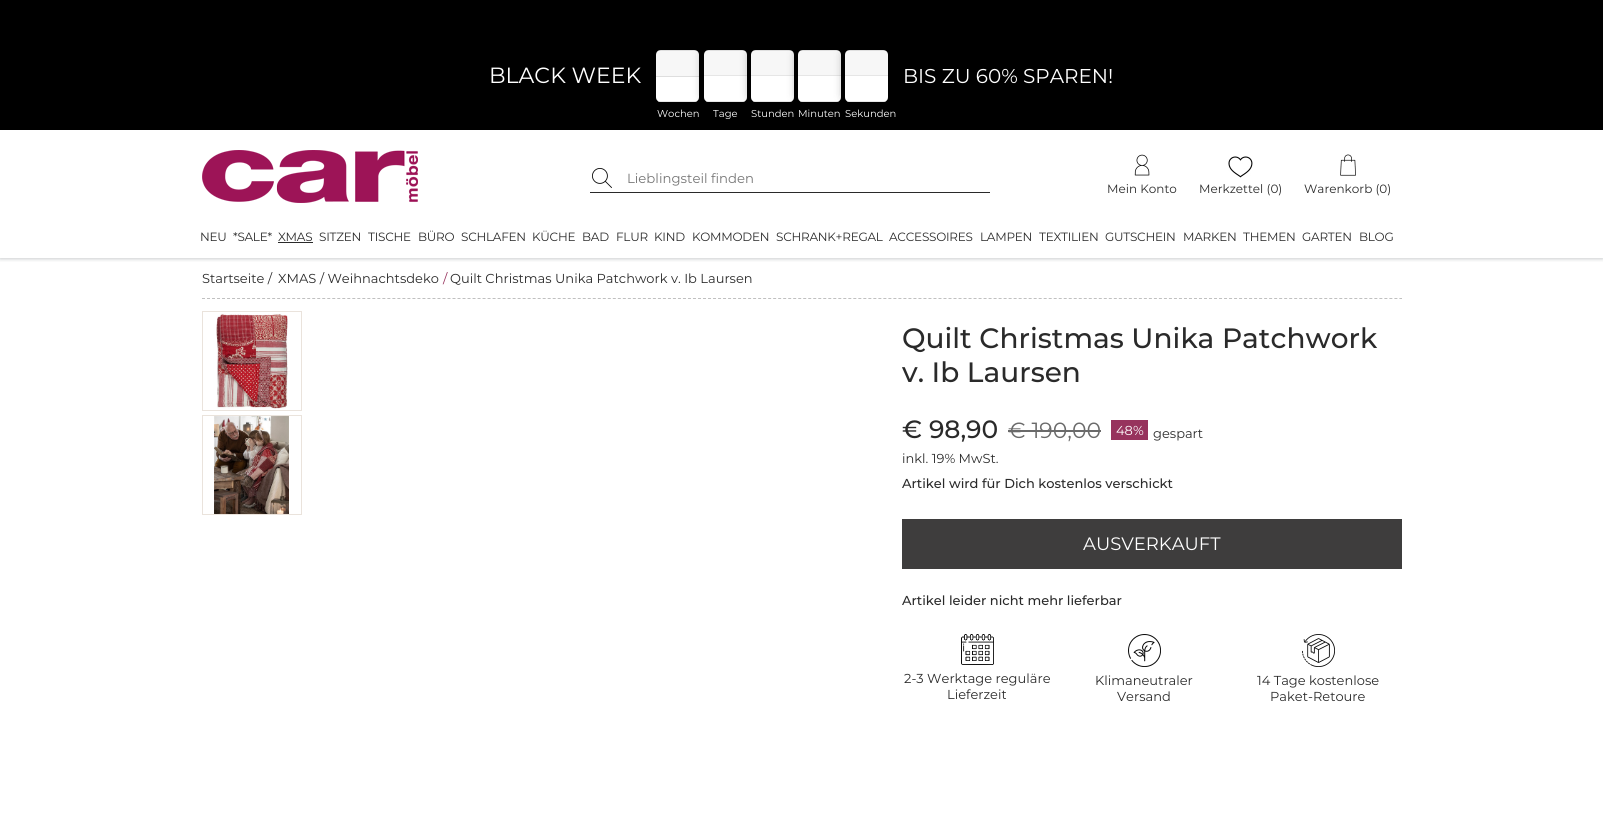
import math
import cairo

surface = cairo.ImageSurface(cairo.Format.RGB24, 1603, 817)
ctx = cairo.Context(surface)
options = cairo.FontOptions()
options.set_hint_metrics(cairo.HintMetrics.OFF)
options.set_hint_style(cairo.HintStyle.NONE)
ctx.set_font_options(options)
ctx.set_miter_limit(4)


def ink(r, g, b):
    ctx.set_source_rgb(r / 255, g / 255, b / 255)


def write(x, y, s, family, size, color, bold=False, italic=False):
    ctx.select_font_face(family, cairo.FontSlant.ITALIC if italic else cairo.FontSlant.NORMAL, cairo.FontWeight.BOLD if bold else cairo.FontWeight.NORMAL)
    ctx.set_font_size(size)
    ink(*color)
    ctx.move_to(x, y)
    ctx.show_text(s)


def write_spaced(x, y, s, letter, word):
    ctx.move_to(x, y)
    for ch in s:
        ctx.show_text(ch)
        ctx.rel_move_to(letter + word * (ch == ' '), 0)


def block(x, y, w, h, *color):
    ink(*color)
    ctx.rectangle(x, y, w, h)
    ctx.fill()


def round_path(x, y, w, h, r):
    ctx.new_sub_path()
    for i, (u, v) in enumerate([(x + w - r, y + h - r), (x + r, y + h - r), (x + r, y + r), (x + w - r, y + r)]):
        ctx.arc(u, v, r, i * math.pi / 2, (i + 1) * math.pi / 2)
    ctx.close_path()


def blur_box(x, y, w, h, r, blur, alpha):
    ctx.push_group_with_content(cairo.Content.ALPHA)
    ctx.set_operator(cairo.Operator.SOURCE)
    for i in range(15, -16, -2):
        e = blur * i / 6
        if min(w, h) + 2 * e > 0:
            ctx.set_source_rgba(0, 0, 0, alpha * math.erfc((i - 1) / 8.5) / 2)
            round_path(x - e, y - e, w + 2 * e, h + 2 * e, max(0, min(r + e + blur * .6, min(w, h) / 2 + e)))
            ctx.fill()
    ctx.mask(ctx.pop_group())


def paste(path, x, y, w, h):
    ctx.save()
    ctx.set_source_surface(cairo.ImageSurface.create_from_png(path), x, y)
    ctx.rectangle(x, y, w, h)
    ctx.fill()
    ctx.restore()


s1 = dict(family="Montserrat", size=22, color=(255, 255, 255))
s2 = dict(family="Montserrat", size=20, color=(255, 255, 255))
s3 = dict(family="Montserrat", size=10, color=(255, 255, 255))
s4 = dict(family="Montserrat", size=13.25, color=(117, 117, 117))
s5 = dict(family="Montserrat", size=12, color=(42, 42, 42))
s6 = dict(family="Montserrat", size=13, color=(42, 42, 42))
s7 = dict(family="Montserrat", size=13, color=(151, 51, 93))
s8 = dict(family="Montserrat Medium", size=28, color=(42, 42, 42))
s9 = dict(family="Montserrat Medium", size=25, color=(42, 42, 42))
s10 = dict(family="Montserrat", size=22, color=(106, 106, 106))
s11 = dict(family="Montserrat", size=13, color=(255, 255, 255))
s12 = dict(family="Montserrat Medium", size=13, color=(42, 42, 42))
s13 = dict(family="Montserrat", size=18, color=(255, 255, 255))

ink(255, 255, 255)
ctx.paint()
ctx.save()
ctx.rectangle(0, 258, 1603, 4)
ctx.clip()
ink(37, 50, 55)
blur_box(0, 1, 1603, 258, 0, 2, 0.25)
ctx.restore()
block(0, 0, 1603, 130, 0, 0, 0)
write(489, 83, "BLACK WEEK", **s1)
write(903, 83, "BIS ZU 60% SPAREN!", **s2)
ctx.new_path()
ctx.move_to(656, 75)
ctx.line_to(699, 75)
ctx.line_to(699, 97)
ctx.curve_to(699, 100, 697, 102, 694, 102)
ctx.line_to(661, 102)
ctx.curve_to(658, 102, 656, 100, 656, 97)
ctx.close_path()
ctx.fill()
ink(247, 247, 247)
ctx.new_path()
ctx.move_to(661, 50)
ctx.line_to(694, 50)
ctx.curve_to(697, 50, 699, 52, 699, 55)
ctx.line_to(699, 77)
ctx.line_to(656, 77)
ctx.line_to(656, 55)
ctx.curve_to(656, 52, 658, 50, 661, 50)
ctx.close_path()
ctx.fill()
ctx.set_source_rgba(0, 0, 0, 0.1)
ctx.rectangle(659, 50, 38, 1)
ctx.fill()
block(656, 76, 43, 1, 222, 222, 222)
gradient = cairo.LinearGradient(678, 76, 678, 101)
gradient.add_color_stop_rgba(0, 1, 1, 1, 0.9)
gradient.add_color_stop_rgba(1, 1, 1, 1, 0)
ctx.set_source(gradient)
ctx.rectangle(656, 98, 43, 2)
ctx.fill()
ctx.save()
ctx.new_path()
ctx.move_to(656, 75)
ctx.line_to(699, 75)
ctx.line_to(699, 97)
ctx.curve_to(699, 100, 697, 102, 694, 102)
ctx.line_to(661, 102)
ctx.curve_to(658, 102, 656, 100, 656, 97)
ctx.close_path()
ctx.clip()
gradient = cairo.LinearGradient(678, 101, 678, 126)
gradient.add_color_stop_rgba(0, 1, 1, 1, 0.9)
gradient.add_color_stop_rgba(1, 1, 1, 1, 0)
ctx.set_source(gradient)
ctx.rectangle(656, 101, 43, 1)
ctx.fill()
ctx.restore()
ctx.set_source_rgba(0, 0, 0, 0.1)
ctx.rectangle(659, 101, 38, 1)
ctx.fill()
write(657, 117, "Wochen", **s3)
ink(0, 0, 0)
blur_box(704, 50, 43, 50, 5, 5, 0.5)
ink(247, 247, 247)
ctx.new_path()
ctx.move_to(709, 50)
ctx.line_to(742, 50)
ctx.curve_to(745, 50, 747, 52, 747, 55)
ctx.line_to(747, 77)
ctx.line_to(704, 77)
ctx.line_to(704, 55)
ctx.curve_to(704, 52, 706, 50, 709, 50)
ctx.close_path()
ctx.fill()
ctx.set_source_rgba(0, 0, 0, 0.1)
ctx.rectangle(707, 50, 38, 1)
ctx.fill()
ink(255, 255, 255)
ctx.new_path()
ctx.move_to(704, 75)
ctx.line_to(747, 75)
ctx.line_to(747, 97)
ctx.curve_to(747, 100, 745, 102, 742, 102)
ctx.line_to(709, 102)
ctx.curve_to(706, 102, 704, 100, 704, 97)
ctx.close_path()
ctx.fill()
gradient = cairo.LinearGradient(726, 76, 726, 101)
gradient.add_color_stop_rgba(0, 1, 1, 1, 0.9)
gradient.add_color_stop_rgba(1, 1, 1, 1, 0)
ctx.set_source(gradient)
ctx.rectangle(704, 98, 43, 2)
ctx.fill()
ctx.save()
ctx.new_path()
ctx.move_to(704, 75)
ctx.line_to(747, 75)
ctx.line_to(747, 97)
ctx.curve_to(747, 100, 745, 102, 742, 102)
ctx.line_to(709, 102)
ctx.curve_to(706, 102, 704, 100, 704, 97)
ctx.close_path()
ctx.clip()
gradient = cairo.LinearGradient(726, 101, 726, 126)
gradient.add_color_stop_rgba(0, 1, 1, 1, 0.9)
gradient.add_color_stop_rgba(1, 1, 1, 1, 0)
ctx.set_source(gradient)
ctx.rectangle(704, 101, 43, 1)
ctx.fill()
ctx.restore()
block(704, 75, 43, 1, 230, 230, 230)
ctx.set_source_rgba(0, 0, 0, 0.1)
ctx.rectangle(707, 101, 38, 1)
ctx.fill()
write(713, 117, "Tage", **s3)
ink(0, 0, 0)
blur_box(751, 50, 43, 50, 5, 5, 0.5)
ink(247, 247, 247)
ctx.new_path()
ctx.move_to(756, 50)
ctx.line_to(789, 50)
ctx.curve_to(792, 50, 794, 52, 794, 55)
ctx.line_to(794, 77)
ctx.line_to(751, 77)
ctx.line_to(751, 55)
ctx.curve_to(751, 52, 753, 50, 756, 50)
ctx.close_path()
ctx.fill()
ctx.set_source_rgba(0, 0, 0, 0.1)
ctx.rectangle(754, 50, 38, 1)
ctx.fill()
ink(255, 255, 255)
ctx.new_path()
ctx.move_to(751, 75)
ctx.line_to(794, 75)
ctx.line_to(794, 97)
ctx.curve_to(794, 100, 792, 102, 789, 102)
ctx.line_to(756, 102)
ctx.curve_to(753, 102, 751, 100, 751, 97)
ctx.close_path()
ctx.fill()
gradient = cairo.LinearGradient(773, 76, 773, 101)
gradient.add_color_stop_rgba(0, 1, 1, 1, 0.9)
gradient.add_color_stop_rgba(1, 1, 1, 1, 0)
ctx.set_source(gradient)
ctx.rectangle(751, 98, 43, 2)
ctx.fill()
ctx.save()
ctx.new_path()
ctx.move_to(751, 75)
ctx.line_to(794, 75)
ctx.line_to(794, 97)
ctx.curve_to(794, 100, 792, 102, 789, 102)
ctx.line_to(756, 102)
ctx.curve_to(753, 102, 751, 100, 751, 97)
ctx.close_path()
ctx.clip()
gradient = cairo.LinearGradient(773, 101, 773, 126)
gradient.add_color_stop_rgba(0, 1, 1, 1, 0.9)
gradient.add_color_stop_rgba(1, 1, 1, 1, 0)
ctx.set_source(gradient)
ctx.rectangle(751, 101, 43, 1)
ctx.fill()
ctx.restore()
block(751, 75, 43, 1, 230, 230, 230)
ctx.set_source_rgba(0, 0, 0, 0.1)
ctx.rectangle(754, 101, 38, 1)
ctx.fill()
write(751, 117, "Stunden", **s3)
ink(0, 0, 0)
blur_box(798, 50, 43, 50, 5, 5, 0.5)
ink(247, 247, 247)
ctx.new_path()
ctx.move_to(803, 50)
ctx.line_to(836, 50)
ctx.curve_to(839, 50, 841, 52, 841, 55)
ctx.line_to(841, 77)
ctx.line_to(798, 77)
ctx.line_to(798, 55)
ctx.curve_to(798, 52, 800, 50, 803, 50)
ctx.close_path()
ctx.fill()
ctx.set_source_rgba(0, 0, 0, 0.1)
ctx.rectangle(801, 50, 38, 1)
ctx.fill()
ink(255, 255, 255)
ctx.new_path()
ctx.move_to(798, 75)
ctx.line_to(841, 75)
ctx.line_to(841, 97)
ctx.curve_to(841, 100, 839, 102, 836, 102)
ctx.line_to(803, 102)
ctx.curve_to(800, 102, 798, 100, 798, 97)
ctx.close_path()
ctx.fill()
gradient = cairo.LinearGradient(820, 76, 820, 101)
gradient.add_color_stop_rgba(0, 1, 1, 1, 0.9)
gradient.add_color_stop_rgba(1, 1, 1, 1, 0)
ctx.set_source(gradient)
ctx.rectangle(798, 98, 43, 2)
ctx.fill()
ctx.save()
ctx.new_path()
ctx.move_to(798, 75)
ctx.line_to(841, 75)
ctx.line_to(841, 97)
ctx.curve_to(841, 100, 839, 102, 836, 102)
ctx.line_to(803, 102)
ctx.curve_to(800, 102, 798, 100, 798, 97)
ctx.close_path()
ctx.clip()
gradient = cairo.LinearGradient(820, 101, 820, 126)
gradient.add_color_stop_rgba(0, 1, 1, 1, 0.9)
gradient.add_color_stop_rgba(1, 1, 1, 1, 0)
ctx.set_source(gradient)
ctx.rectangle(798, 101, 43, 1)
ctx.fill()
ctx.restore()
block(798, 75, 43, 1, 230, 230, 230)
ctx.set_source_rgba(0, 0, 0, 0.1)
ctx.rectangle(801, 101, 38, 1)
ctx.fill()
write(798, 117, "Minuten", **s3)
ink(0, 0, 0)
blur_box(845, 50, 43, 50, 5, 5, 0.5)
ink(247, 247, 247)
ctx.new_path()
ctx.move_to(850, 50)
ctx.line_to(883, 50)
ctx.curve_to(886, 50, 888, 52, 888, 55)
ctx.line_to(888, 77)
ctx.line_to(845, 77)
ctx.line_to(845, 55)
ctx.curve_to(845, 52, 847, 50, 850, 50)
ctx.close_path()
ctx.fill()
ctx.set_source_rgba(0, 0, 0, 0.1)
ctx.rectangle(848, 50, 38, 1)
ctx.fill()
ink(255, 255, 255)
ctx.new_path()
ctx.move_to(845, 75)
ctx.line_to(888, 75)
ctx.line_to(888, 97)
ctx.curve_to(888, 100, 886, 102, 883, 102)
ctx.line_to(850, 102)
ctx.curve_to(847, 102, 845, 100, 845, 97)
ctx.close_path()
ctx.fill()
gradient = cairo.LinearGradient(867, 76, 867, 101)
gradient.add_color_stop_rgba(0, 1, 1, 1, 0.9)
gradient.add_color_stop_rgba(1, 1, 1, 1, 0)
ctx.set_source(gradient)
ctx.rectangle(845, 98, 43, 2)
ctx.fill()
ctx.save()
ctx.new_path()
ctx.move_to(845, 75)
ctx.line_to(888, 75)
ctx.line_to(888, 97)
ctx.curve_to(888, 100, 886, 102, 883, 102)
ctx.line_to(850, 102)
ctx.curve_to(847, 102, 845, 100, 845, 97)
ctx.close_path()
ctx.clip()
gradient = cairo.LinearGradient(867, 101, 867, 126)
gradient.add_color_stop_rgba(0, 1, 1, 1, 0.9)
gradient.add_color_stop_rgba(1, 1, 1, 1, 0)
ctx.set_source(gradient)
ctx.rectangle(845, 101, 43, 1)
ctx.fill()
ctx.restore()
block(845, 75, 43, 1, 230, 230, 230)
ctx.set_source_rgba(0, 0, 0, 0.1)
ctx.rectangle(848, 101, 38, 1)
ctx.fill()
write(845, 117, "Sekunden", **s3)
paste("pic1.png", 202, 150, 216, 53)
block(590, 192, 400, 1, 42, 42, 42)
paste("pic2.png", 592, 168, 20, 20)
write(627, 183, "Lieblingsteil finden", **s4)
paste("pic3.png", 1134, 154, 16, 22)
write(1107, 193, "Mein Konto", **s5)
paste("pic4.png", 1228, 156, 25, 22)
write(1199, 193, "Merkzettel (0)", **s5)
paste("pic5.png", 1340, 154, 16, 22)
write(1304, 193, "Warenkorb (0)", **s5)
write_spaced(200, 241, "NEU", -0.25, 0)
write_spaced(233, 241, "*SALE*", -0.25, 0)
write_spaced(278, 241, "XMAS", -0.25, 0)
block(278, 242, 35, 1, 42, 42, 42)
write_spaced(319, 241, "SITZEN", -0.25, 0)
write_spaced(368, 241, "TISCHE", -0.25, 0)
write_spaced(418, 241, "BÜRO", -0.25, 0)
write_spaced(461, 241, "SCHLAFEN", -0.25, 0)
write_spaced(532, 241, "KÜCHE", -0.25, 0)
write_spaced(582, 241, "BAD", -0.25, 0)
write_spaced(616, 241, "FLUR", -0.25, 0)
write_spaced(654, 241, "KIND", -0.25, 0)
write_spaced(692, 241, "KOMMODEN", -0.25, 0)
write_spaced(776, 241, "SCHRANK+REGAL", -0.25, 0)
write_spaced(889, 241, "ACCESSOIRES", -0.25, 0)
write_spaced(980, 241, "LAMPEN", -0.25, 0)
write_spaced(1039, 241, "TEXTILIEN", -0.25, 0)
write_spaced(1105, 241, "GUTSCHEIN", -0.25, 0)
write_spaced(1183, 241, "MARKEN", -0.25, 0)
write_spaced(1243, 241, "THEMEN", -0.25, 0)
write_spaced(1302, 241, "GARTEN", -0.25, 0)
write_spaced(1359, 241, "BLOG", -0.25, 0)
ctx.new_path()
ctx.move_to(202, 298.5)
ctx.line_to(1402, 298.5)
ink(192, 192, 192)
ctx.set_line_width(1)
ctx.set_dash([3, 2.01])
ctx.stroke()
write(202, 283, "Startseite /", **s6)
write(278, 283, "XMAS / Weihnachtsdeko", **s6)
write(443, 283, "/", **s7)
write(450, 283, "Quilt Christmas Unika Patchwork v. Ib Laursen", **s6)
ctx.rectangle(202.5, 311.5, 99, 99)
ink(234, 227, 220)
ctx.set_dash([])
ctx.stroke()
paste("pic6.png", 216, 313, 72, 96)
ctx.rectangle(202.5, 415.5, 99, 99)
ctx.stroke()
paste("pic7.png", 214, 416, 75, 98)
write(902, 348, "Quilt Christmas Unika Patchwork", **s8)
write(902, 382, "v. Ib Laursen", **s8)
write(902, 438, "€ 98,90", **s9)
write(1008, 438, "€ 190,00", **s10)
block(1008, 430, 93, 2, 106, 106, 106)
block(1111, 420, 37, 20, 151, 51, 93)
write(1116, 435, "48%", **s11)
write(1153, 438, "gespart", **s6)
write(902, 463, "inkl. 19% MwSt.", **s6)
write(902, 488, "Artikel wird für Dich kostenlos verschickt", **s12)
block(902, 519, 500, 50, 62, 61, 61)
write(1083, 550, "AUSVERKAUFT", **s13)
write(902, 605, "Artikel leider nicht mehr lieferbar", **s12)
paste("pic8.png", 961, 634, 33, 31)
write(904, 683, "2-3 Werktage reguläre", **s6)
write(947, 699, "Lieferzeit", **s6)
paste("pic9.png", 1128, 634, 33, 33)
write(1095, 685, "Klimaneutraler", **s6)
write(1117, 701, "Versand", **s6)
paste("pic10.png", 1302, 634, 33, 33)
write(1257, 685, "14 Tage kostenlose", **s6)
write(1270, 701, "Paket-Retoure", **s6)
surface.write_to_png("screenshot.png")
